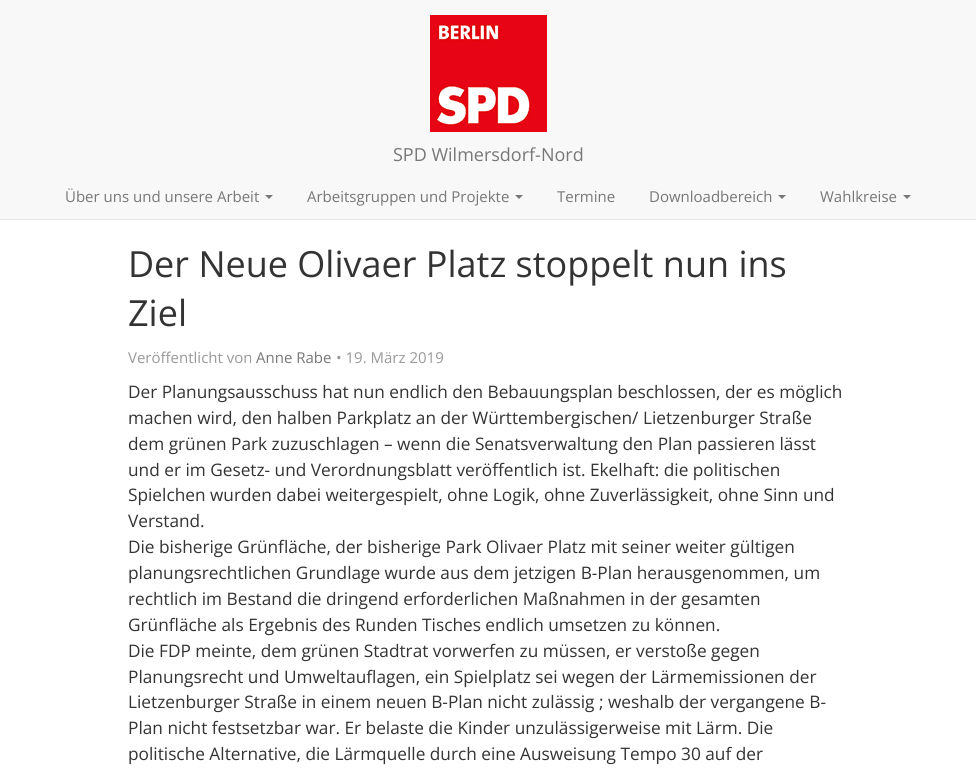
import math
import cairo

surface = cairo.ImageSurface(cairo.Format.RGB24, 976, 771)
ctx = cairo.Context(surface)
options = cairo.FontOptions()
options.set_hint_metrics(cairo.HintMetrics.OFF)
options.set_hint_style(cairo.HintStyle.NONE)
ctx.set_font_options(options)
ctx.set_miter_limit(4)


def ink(r, g, b):
    ctx.set_source_rgb(r / 255, g / 255, b / 255)


def write(x, y, s, family, size, color, bold=False, italic=False):
    ctx.select_font_face(family, cairo.FontSlant.ITALIC if italic else cairo.FontSlant.NORMAL, cairo.FontWeight.BOLD if bold else cairo.FontWeight.NORMAL)
    ctx.set_font_size(size)
    ink(*color)
    ctx.move_to(x, y)
    ctx.show_text(s)


def block(x, y, w, h, *color):
    ink(*color)
    ctx.rectangle(x, y, w, h)
    ctx.fill()


def paste(path, x, y, w, h):
    ctx.save()
    ctx.set_source_surface(cairo.ImageSurface.create_from_png(path), x, y)
    ctx.rectangle(x, y, w, h)
    ctx.fill()
    ctx.restore()


s1 = dict(family="Open Sans", size=18, color=(119, 119, 119))
s2 = dict(family="Open Sans", size=15, color=(119, 119, 119))
s3 = dict(family="Open Sans", size=36, color=(51, 51, 51))
s4 = dict(family="Open Sans", size=15, color=(153, 153, 153))
s5 = dict(family="Open Sans", size=17.25, color=(51, 51, 51))

ink(255, 255, 255)
ctx.paint()
block(0, 0, 976, 219, 248, 248, 248)
block(0, 219, 976, 1, 231, 231, 231)
paste("pic1.png", 430, 15, 117, 117)
write(393, 161, "SPD Wilmersdorf-Nord", **s1)
write(65, 202, "Über uns und unsere Arbeit", **s2)
ctx.new_path()
ctx.move_to(265, 195)
ctx.line_to(273, 195)
ctx.line_to(269, 199)
ctx.close_path()
ctx.fill()
write(307, 202, "Arbeitsgruppen und Projekte", **s2)
ctx.new_path()
ctx.move_to(515, 195)
ctx.line_to(523, 195)
ctx.line_to(519, 199)
ctx.close_path()
ctx.fill()
write(557, 202, "Termine", **s2)
write(649, 202, "Downloadbereich", **s2)
ctx.new_path()
ctx.move_to(778, 195)
ctx.line_to(786, 195)
ctx.line_to(782, 199)
ctx.close_path()
ctx.fill()
write(820, 202, "Wahlkreise", **s2)
ctx.new_path()
ctx.move_to(903, 195)
ctx.line_to(911, 195)
ctx.line_to(907, 199)
ctx.close_path()
ctx.fill()
write(128, 277, "Der Neue Olivaer Platz stoppelt nun ins", **s3)
write(128, 326, "Ziel", **s3)
write(128, 363, "Veröffentlicht von", **s4)
write(256, 363, "Anne Rabe", **s2)
write(336, 363, "• 19. März 2019", **s4)
write(128, 398, "Der Planungsausschuss hat nun endlich den Bebauungsplan beschlossen, der es möglich", **s5)
write(128, 424, "machen wird, den halben Parkplatz an der Württembergischen/ Lietzenburger Straße", **s5)
write(128, 450, "dem grünen Park zuzuschlagen – wenn die Senatsverwaltung den Plan passieren lässt", **s5)
write(128, 476, "und er im Gesetz- und Verordnungsblatt veröffentlich ist. Ekelhaft: die politischen", **s5)
write(128, 501, "Spielchen wurden dabei weitergespielt, ohne Logik, ohne Zuverlässigkeit, ohne Sinn und", **s5)
write(128, 527, "Verstand.", **s5)
write(128, 553, "Die bisherige Grünfläche, der bisherige Park Olivaer Platz mit seiner weiter gültigen", **s5)
write(128, 579, "planungsrechtlichen Grundlage wurde aus dem jetzigen B-Plan herausgenommen, um", **s5)
write(128, 605, "rechtlich im Bestand die dringend erforderlichen Maßnahmen in der gesamten", **s5)
write(128, 631, "Grünfläche als Ergebnis des Runden Tisches endlich umsetzen zu können.", **s5)
write(128, 657, "Die FDP meinte, dem grünen Stadtrat vorwerfen zu müssen, er verstoße gegen", **s5)
write(128, 683, "Planungsrecht und Umweltauflagen, ein Spielplatz sei wegen der Lärmemissionen der", **s5)
write(128, 708, "Lietzenburger Straße in einem neuen B-Plan nicht zulässig ; weshalb der vergangene B-", **s5)
write(128, 734, "Plan nicht festsetzbar war. Er belaste die Kinder unzulässigerweise mit Lärm. Die", **s5)
write(128, 760, "politische Alternative, die Lärmquelle durch eine Ausweisung Tempo 30 auf der", **s5)
surface.write_to_png("screenshot.png")
